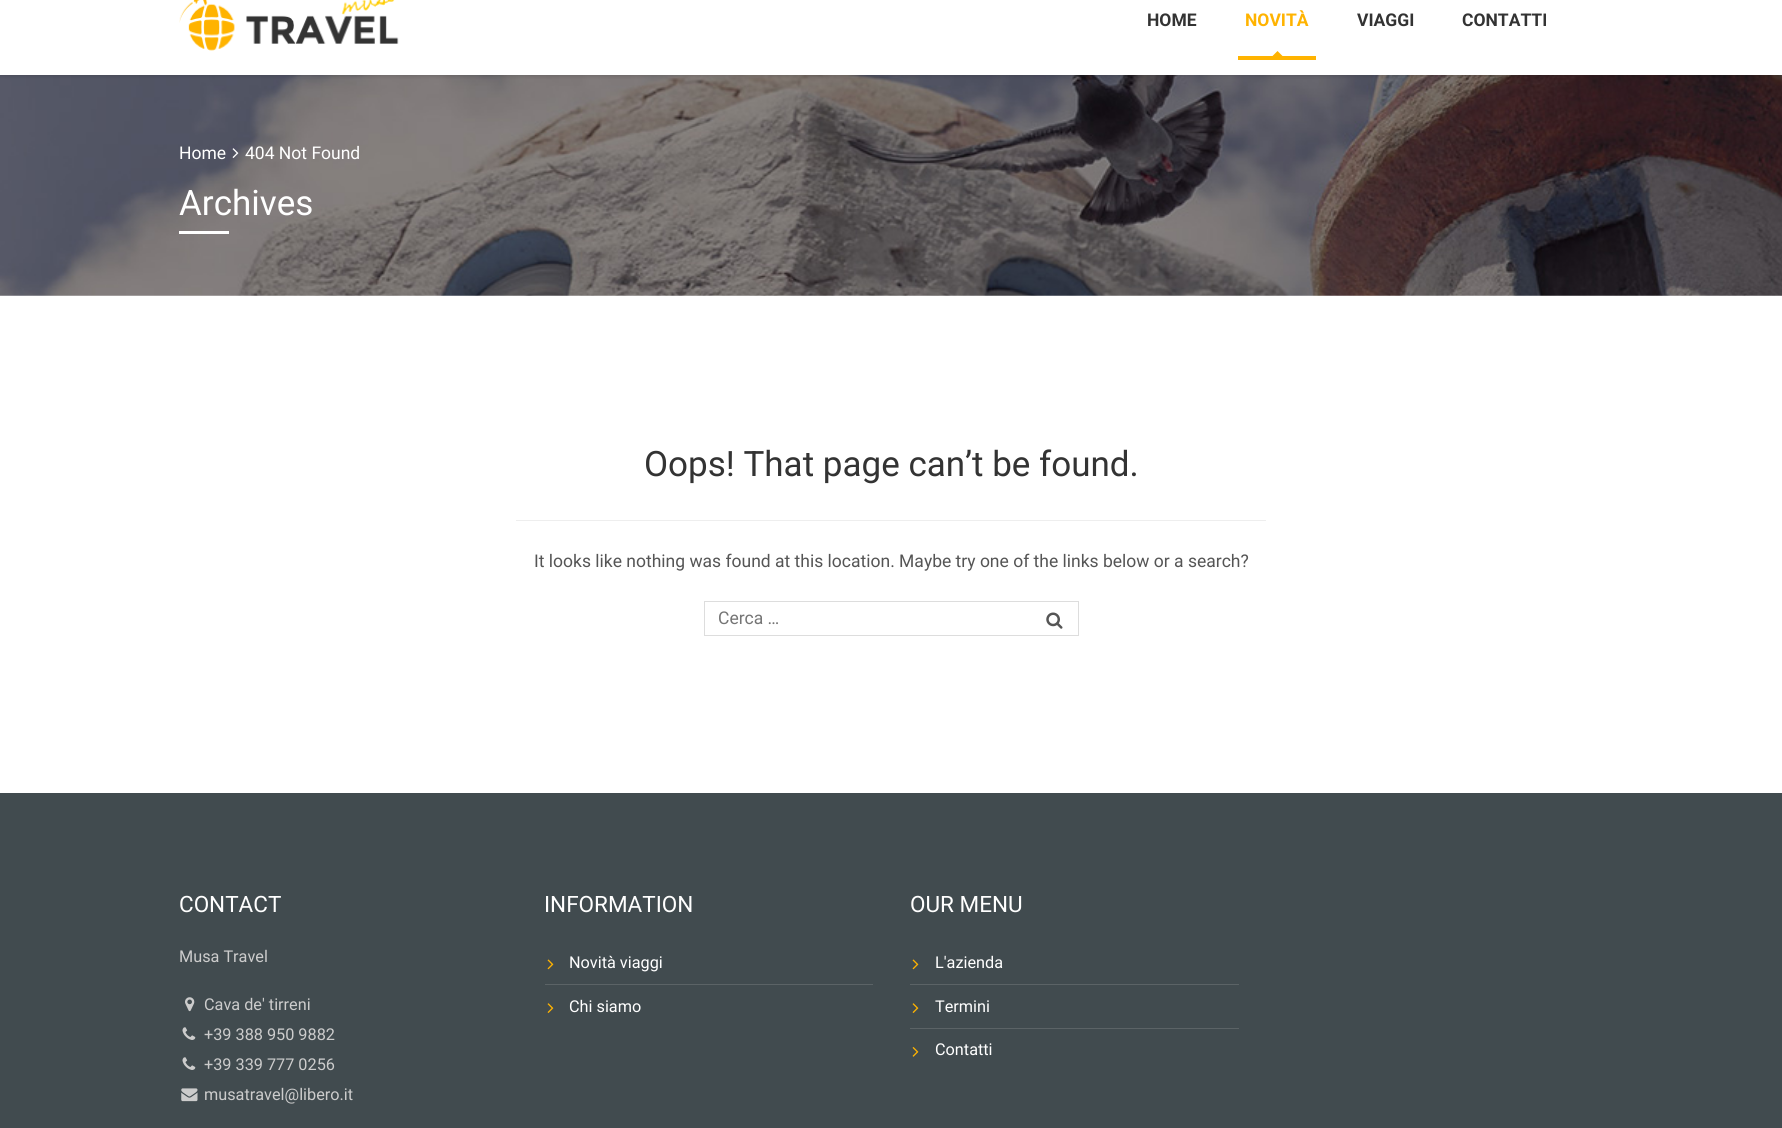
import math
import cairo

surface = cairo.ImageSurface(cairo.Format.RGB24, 1782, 1128)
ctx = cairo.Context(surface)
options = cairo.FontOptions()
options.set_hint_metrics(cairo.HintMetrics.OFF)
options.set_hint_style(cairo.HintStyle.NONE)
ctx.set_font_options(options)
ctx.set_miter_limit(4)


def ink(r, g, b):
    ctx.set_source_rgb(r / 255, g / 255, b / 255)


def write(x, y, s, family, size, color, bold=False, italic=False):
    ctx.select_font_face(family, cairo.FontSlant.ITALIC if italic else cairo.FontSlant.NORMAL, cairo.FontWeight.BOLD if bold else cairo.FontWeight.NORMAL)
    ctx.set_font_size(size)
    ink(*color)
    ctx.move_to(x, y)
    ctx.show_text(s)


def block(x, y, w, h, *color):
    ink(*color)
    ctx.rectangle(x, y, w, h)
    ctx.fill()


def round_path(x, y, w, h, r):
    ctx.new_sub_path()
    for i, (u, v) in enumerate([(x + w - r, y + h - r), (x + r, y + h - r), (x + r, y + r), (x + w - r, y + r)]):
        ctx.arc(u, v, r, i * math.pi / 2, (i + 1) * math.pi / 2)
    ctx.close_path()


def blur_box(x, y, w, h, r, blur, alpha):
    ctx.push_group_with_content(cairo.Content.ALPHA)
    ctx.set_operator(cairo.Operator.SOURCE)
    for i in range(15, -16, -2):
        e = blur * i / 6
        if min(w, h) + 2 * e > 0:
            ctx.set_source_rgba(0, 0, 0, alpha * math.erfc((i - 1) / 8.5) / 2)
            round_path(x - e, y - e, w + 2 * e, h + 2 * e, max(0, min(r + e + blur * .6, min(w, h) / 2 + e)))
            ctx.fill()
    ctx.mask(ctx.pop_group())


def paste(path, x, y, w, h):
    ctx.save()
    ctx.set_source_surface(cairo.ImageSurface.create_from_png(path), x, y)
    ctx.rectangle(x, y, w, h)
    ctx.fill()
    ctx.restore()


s1 = dict(family="Roboto", size=17.5, color=(51, 51, 51), bold=True)
s2 = dict(family="Roboto", size=17.5, color=(255, 179, 0), bold=True)
s3 = dict(family="Roboto", size=17.5, color=(255, 255, 255))
s4 = dict(family="Roboto", size=35, color=(255, 255, 255))
s5 = dict(family="Roboto", size=35, color=(51, 51, 51))
s6 = dict(family="Roboto", size=17.5, color=(85, 85, 85))
s7 = dict(family="Roboto", size=17.5, color=(117, 117, 117))
s8 = dict(family="Roboto", size=22.5, color=(255, 255, 255))
s9 = dict(family="Roboto", size=16.25, color=(204, 204, 204))
s10 = dict(family="Roboto", size=16.25, color=(255, 255, 255))

ink(255, 255, 255)
ctx.paint()
paste("pic2.png", 0, 75, 1782, 221)
ink(0, 0, 0)
blur_box(0, -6, 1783, 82, 0, 2, 0.15)
block(0, 0, 1782, 75, 255, 255, 255)
paste("pic1.png", 179, 0, 220, 51)
write(1147, 26, "HOME", **s1)
write(1245, 26, "NOVITÀ", **s2)
ctx.new_path()
ctx.move_to(1282.5, 56)
ctx.line_to(1272.5, 56)
ctx.line_to(1277.5, 51)
ctx.close_path()
ctx.fill()
block(1238, 56, 78, 4, 255, 179, 0)
write(1357, 26, "VIAGGI", **s1)
write(1462, 26, "CONTATTI", **s1)
write(179, 159, "Home", **s3)
paste("pic3.png", 232, 148, 7, 10)
write(245, 159, "404 Not Found", **s3)
write(179, 215, "Archives", **s4)
block(179, 231, 50, 3, 255, 255, 255)
block(516, 520, 750, 1, 238, 238, 238)
write(644, 476, "Oops! That page can’t be found.", **s5)
write(534, 567, "It looks like nothing was found at this location. Maybe try one of the links below or a search?", **s6)
ctx.rectangle(704.5, 601.5, 374, 34)
ink(221, 221, 221)
ctx.set_line_width(1)
ctx.stroke()
write(718, 624, "Cerca …", **s7)
paste("pic4.png", 1046, 612, 17, 17)
block(0, 793, 1782, 335, 65, 75, 79)
write(179, 912, "CONTACT", **s8)
write(179, 962, "Musa Travel", **s9)
paste("pic5.png", 185, 997, 10, 15)
write(204, 1010, "Cava de' tirreni", **s9)
paste("pic6.png", 182, 1027, 14, 13)
write(204, 1040, "+39 388 950 9882", **s9)
paste("pic6.png", 182, 1057, 14, 13)
write(204, 1070, "+39 339 777 0256", **s9)
paste("pic7.png", 181, 1088, 17, 14)
write(204, 1100, "musatravel@libero.it", **s9)
write(544, 912, "INFORMATION", **s8)
block(545, 984, 328, 1, 91, 99, 102)
paste("pic8.png", 547, 959, 7, 11)
write(569, 968, "Novità viaggi", **s10)
paste("pic9.png", 547, 1003, 7, 10)
write(569, 1012, "Chi siamo", **s10)
write(910, 912, "OUR MENU", **s8)
block(910, 984, 329, 1, 91, 99, 102)
paste("pic8.png", 912, 959, 7, 11)
write(935, 968, "L'azienda", **s10)
block(910, 1028, 329, 1, 91, 99, 102)
paste("pic9.png", 912, 1003, 7, 10)
write(935, 1012, "Termini", **s10)
paste("pic10.png", 912, 1047, 7, 10)
write(935, 1055, "Contatti", **s10)
surface.write_to_png("screenshot.png")
